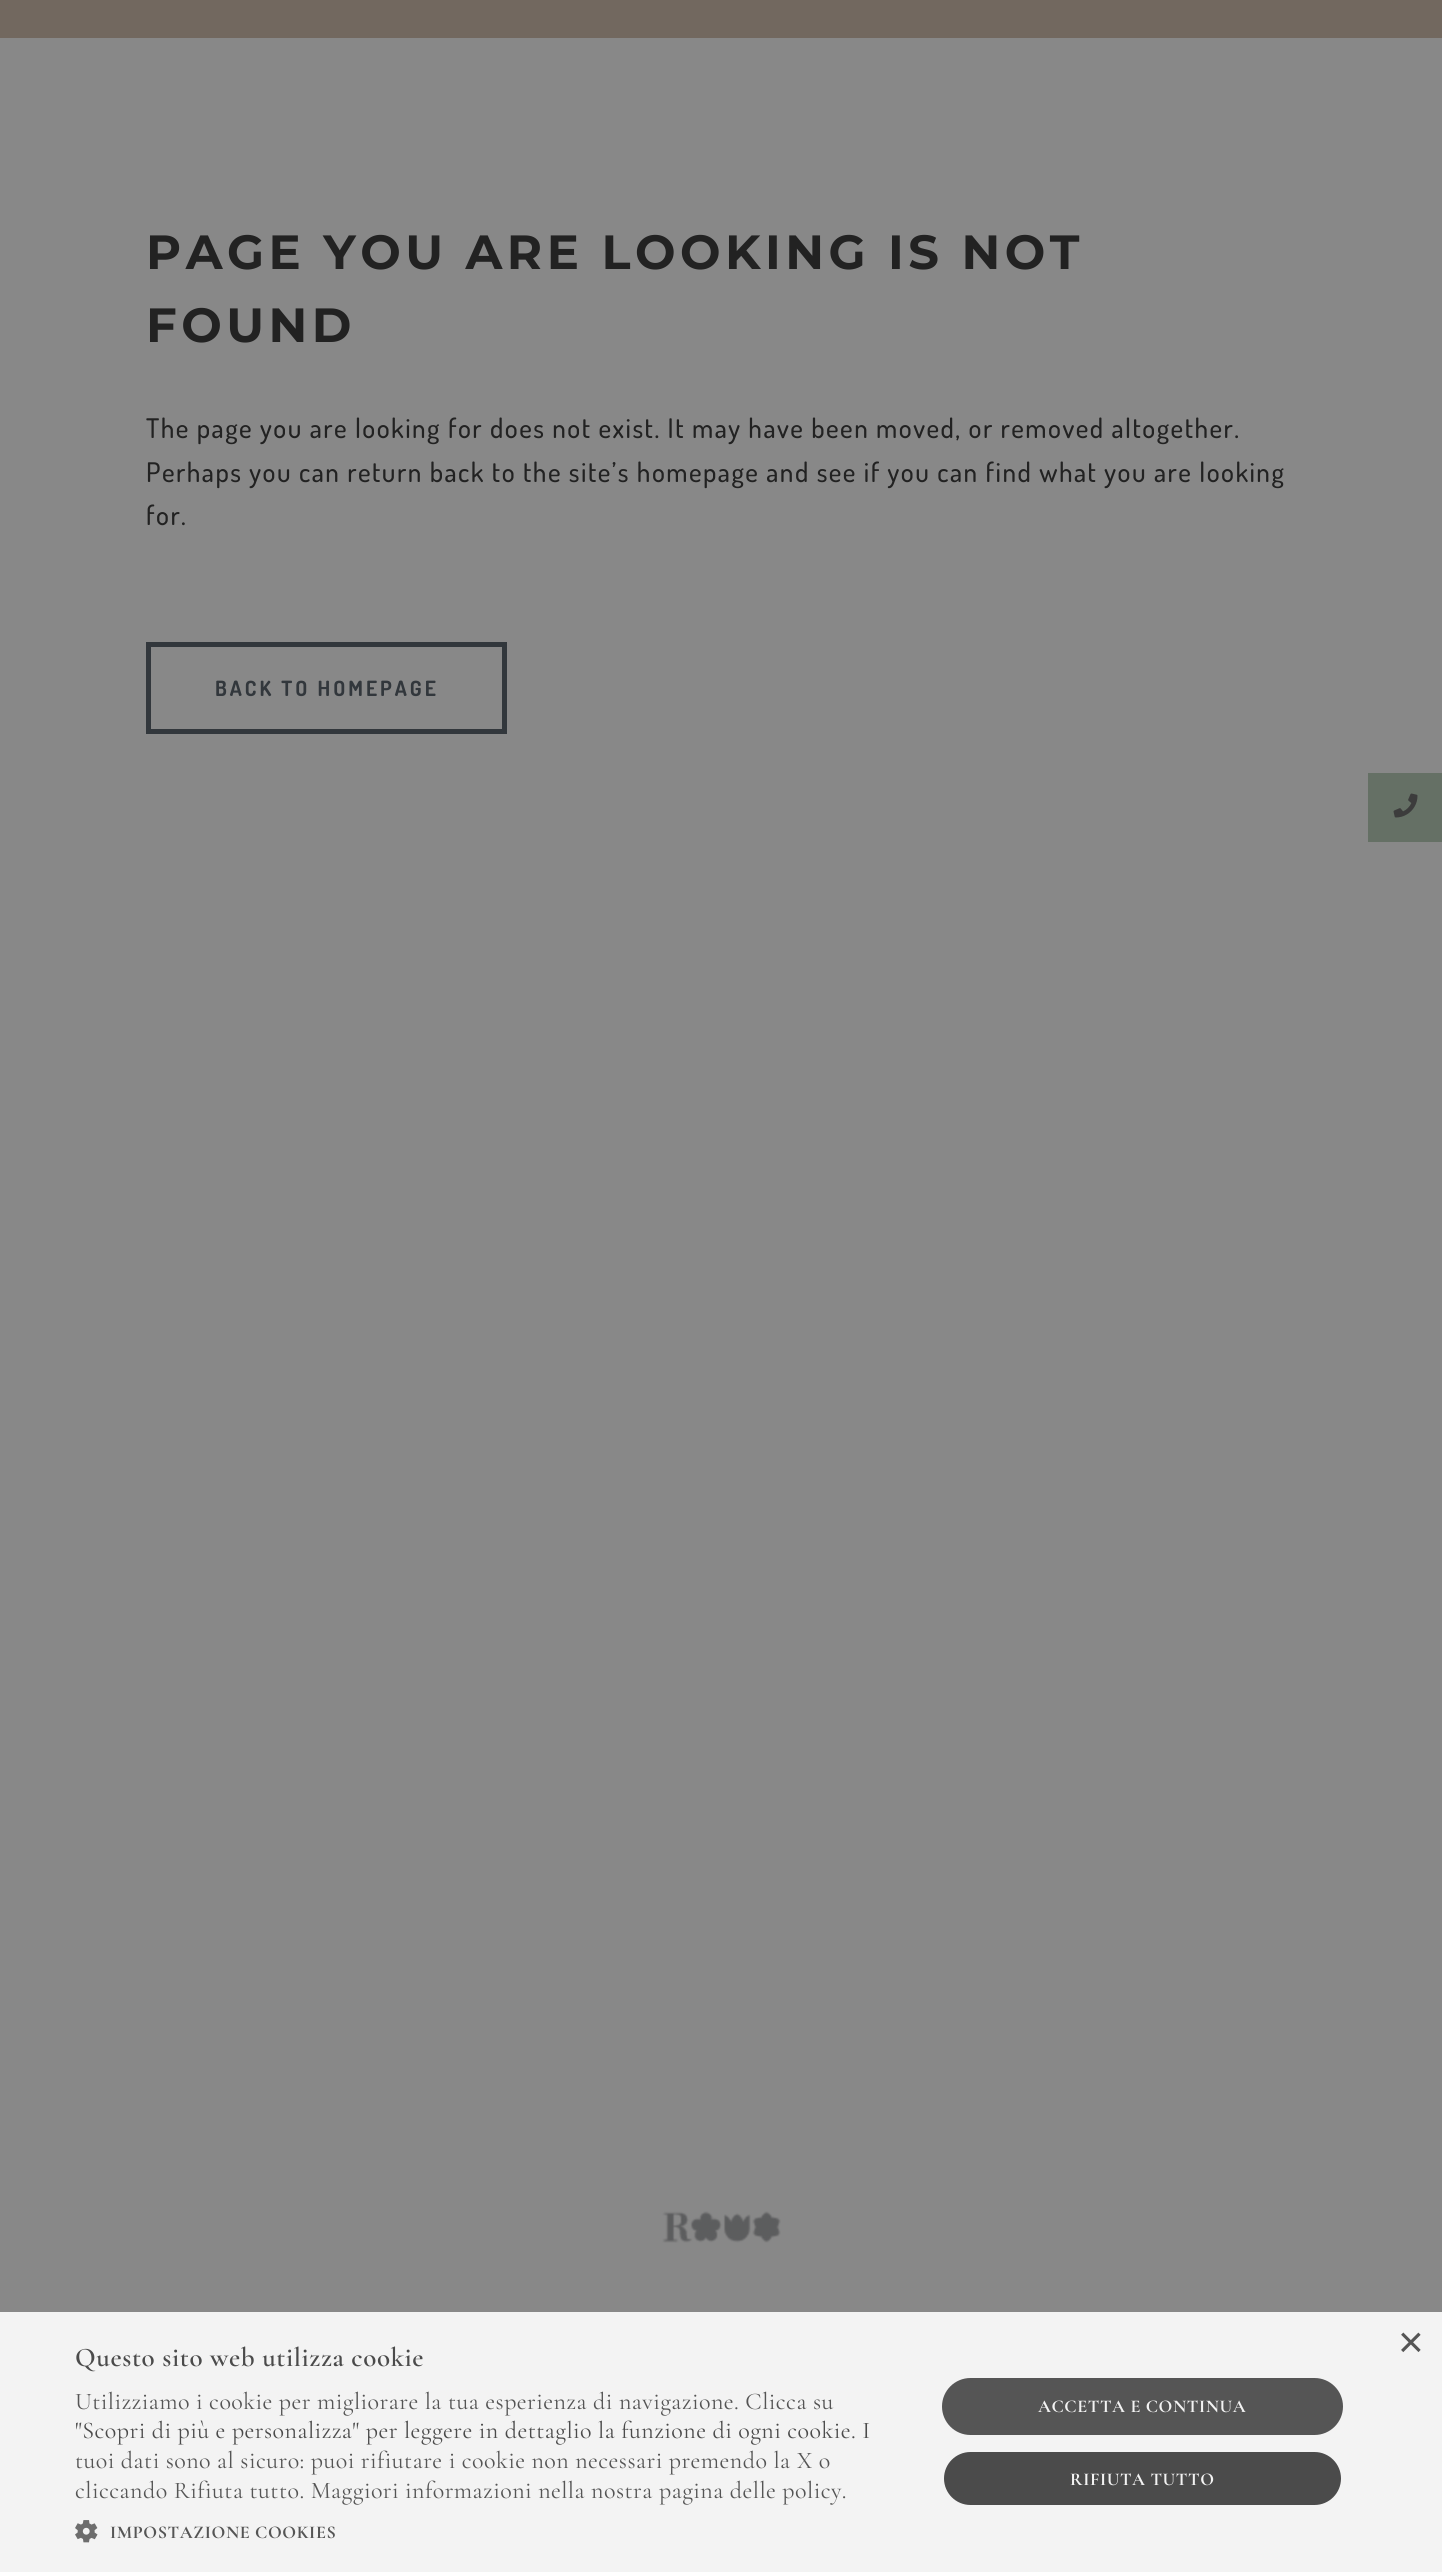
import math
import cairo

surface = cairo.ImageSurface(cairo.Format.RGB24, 1442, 2572)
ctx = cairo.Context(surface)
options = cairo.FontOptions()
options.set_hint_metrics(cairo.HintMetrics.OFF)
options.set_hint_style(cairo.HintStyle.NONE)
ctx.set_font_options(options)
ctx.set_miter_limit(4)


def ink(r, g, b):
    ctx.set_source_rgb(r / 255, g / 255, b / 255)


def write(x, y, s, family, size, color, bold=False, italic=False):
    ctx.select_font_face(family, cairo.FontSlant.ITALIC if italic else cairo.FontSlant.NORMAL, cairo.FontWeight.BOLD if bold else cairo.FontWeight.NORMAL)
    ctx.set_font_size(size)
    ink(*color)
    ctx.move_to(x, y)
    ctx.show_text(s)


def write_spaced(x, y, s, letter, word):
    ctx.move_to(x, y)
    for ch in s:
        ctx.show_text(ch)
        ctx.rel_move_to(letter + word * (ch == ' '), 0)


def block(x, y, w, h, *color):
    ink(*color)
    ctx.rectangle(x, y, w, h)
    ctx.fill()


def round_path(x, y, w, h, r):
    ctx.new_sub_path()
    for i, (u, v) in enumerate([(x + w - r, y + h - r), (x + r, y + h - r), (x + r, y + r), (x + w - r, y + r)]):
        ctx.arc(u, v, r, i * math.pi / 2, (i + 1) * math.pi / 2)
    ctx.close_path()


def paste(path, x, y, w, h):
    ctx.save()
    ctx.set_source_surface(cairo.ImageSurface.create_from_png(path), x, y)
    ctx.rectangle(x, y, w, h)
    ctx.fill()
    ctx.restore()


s1 = dict(family="Liberation Sans", size=44, color=(85, 85, 85))

ink(136, 136, 136)
ctx.paint()
block(0, 2312, 1442, 260, 243, 243, 243)
block(0, 0, 1442, 38, 114, 104, 95)
ctx.select_font_face("Montserrat", cairo.FontSlant.NORMAL, cairo.FontWeight.BOLD)
ctx.set_font_size(48)
ink(34, 34, 34)
write_spaced(146, 269, "PAGE YOU ARE LOOKING IS NOT", 4.5, 0)
write_spaced(146, 342, "FOUND", 4.5, 0)
ctx.select_font_face("Dosis Medium")
ctx.set_font_size(27)
write_spaced(146, 438, "The page you are looking for does not exist. It may have been moved, or removed altogether.", 1.5, 0)
write_spaced(146, 482, "Perhaps you can return back to the site’s homepage and see if you can find what you are looking", 1.5, 0)
write_spaced(146, 525, "for.", 1.5, 0)
ctx.rectangle(148.5, 644.5, 356, 87)
ink(50, 55, 60)
ctx.set_line_width(5)
ctx.stroke()
ctx.select_font_face("Dosis", cairo.FontSlant.NORMAL, cairo.FontWeight.BOLD)
ctx.set_font_size(21)
write_spaced(215, 696, "BACK TO HOMEPAGE", 3, 0)
paste("pic1.png", 662, 2211, 119, 32)
block(1368, 773, 74, 69, 101, 112, 101)
paste("pic2.png", 1393, 793, 25, 25)
write(1398, 2357, "×", **s1)
ctx.select_font_face("Cormorant Garamond SemiBold")
ctx.set_font_size(27)
ink(75, 75, 75)
write_spaced(75, 2366, "Questo sito web utilizza cookie", 0.6, 0)
ctx.select_font_face("Cormorant Garamond")
ctx.set_font_size(24)
ink(85, 85, 85)
write_spaced(75, 2409, "Utilizziamo i cookie per migliorare la tua esperienza di navigazione. Clicca su", 0.45, 0)
ink(75, 75, 75)
write_spaced(75, 2438, "\"Scopri di più e personalizza\" per leggere in dettaglio la funzione di ogni cookie. I", 0.45, 0)
ink(85, 85, 85)
write_spaced(75, 2468, "tuoi dati sono al sicuro: puoi rifiutare i cookie non necessari premendo la X o", 0.45, 0)
write_spaced(75, 2498, "cliccando Rifiuta tutto. Maggiori informazioni nella nostra", 0.45, 0)
write_spaced(659, 2498, "pagina delle policy.", 0.45, 0)
paste("pic3.png", 75, 2520, 23, 23)
ctx.select_font_face("Cormorant Garamond", cairo.FontSlant.NORMAL, cairo.FontWeight.BOLD)
ctx.set_font_size(18)
write_spaced(110, 2538, "IMPOSTAZIONE COOKIES", 0.6, 0)
ctx.set_source_rgba(0.267, 0.267, 0.267, 0.9)
round_path(942, 2378, 401, 57, 28.5)
ctx.fill()
ink(243, 243, 243)
write_spaced(1038, 2412, "ACCETTA E CONTINUA", 0.6, 0)
ink(75, 75, 75)
round_path(943, 2451, 399, 55, 27.5)
ctx.fill_preserve()
ink(243, 243, 243)
ctx.set_line_width(2)
ctx.stroke()
write_spaced(1070, 2485, "RIFIUTA TUTTO", 0.6, 0)
surface.write_to_png("screenshot.png")
